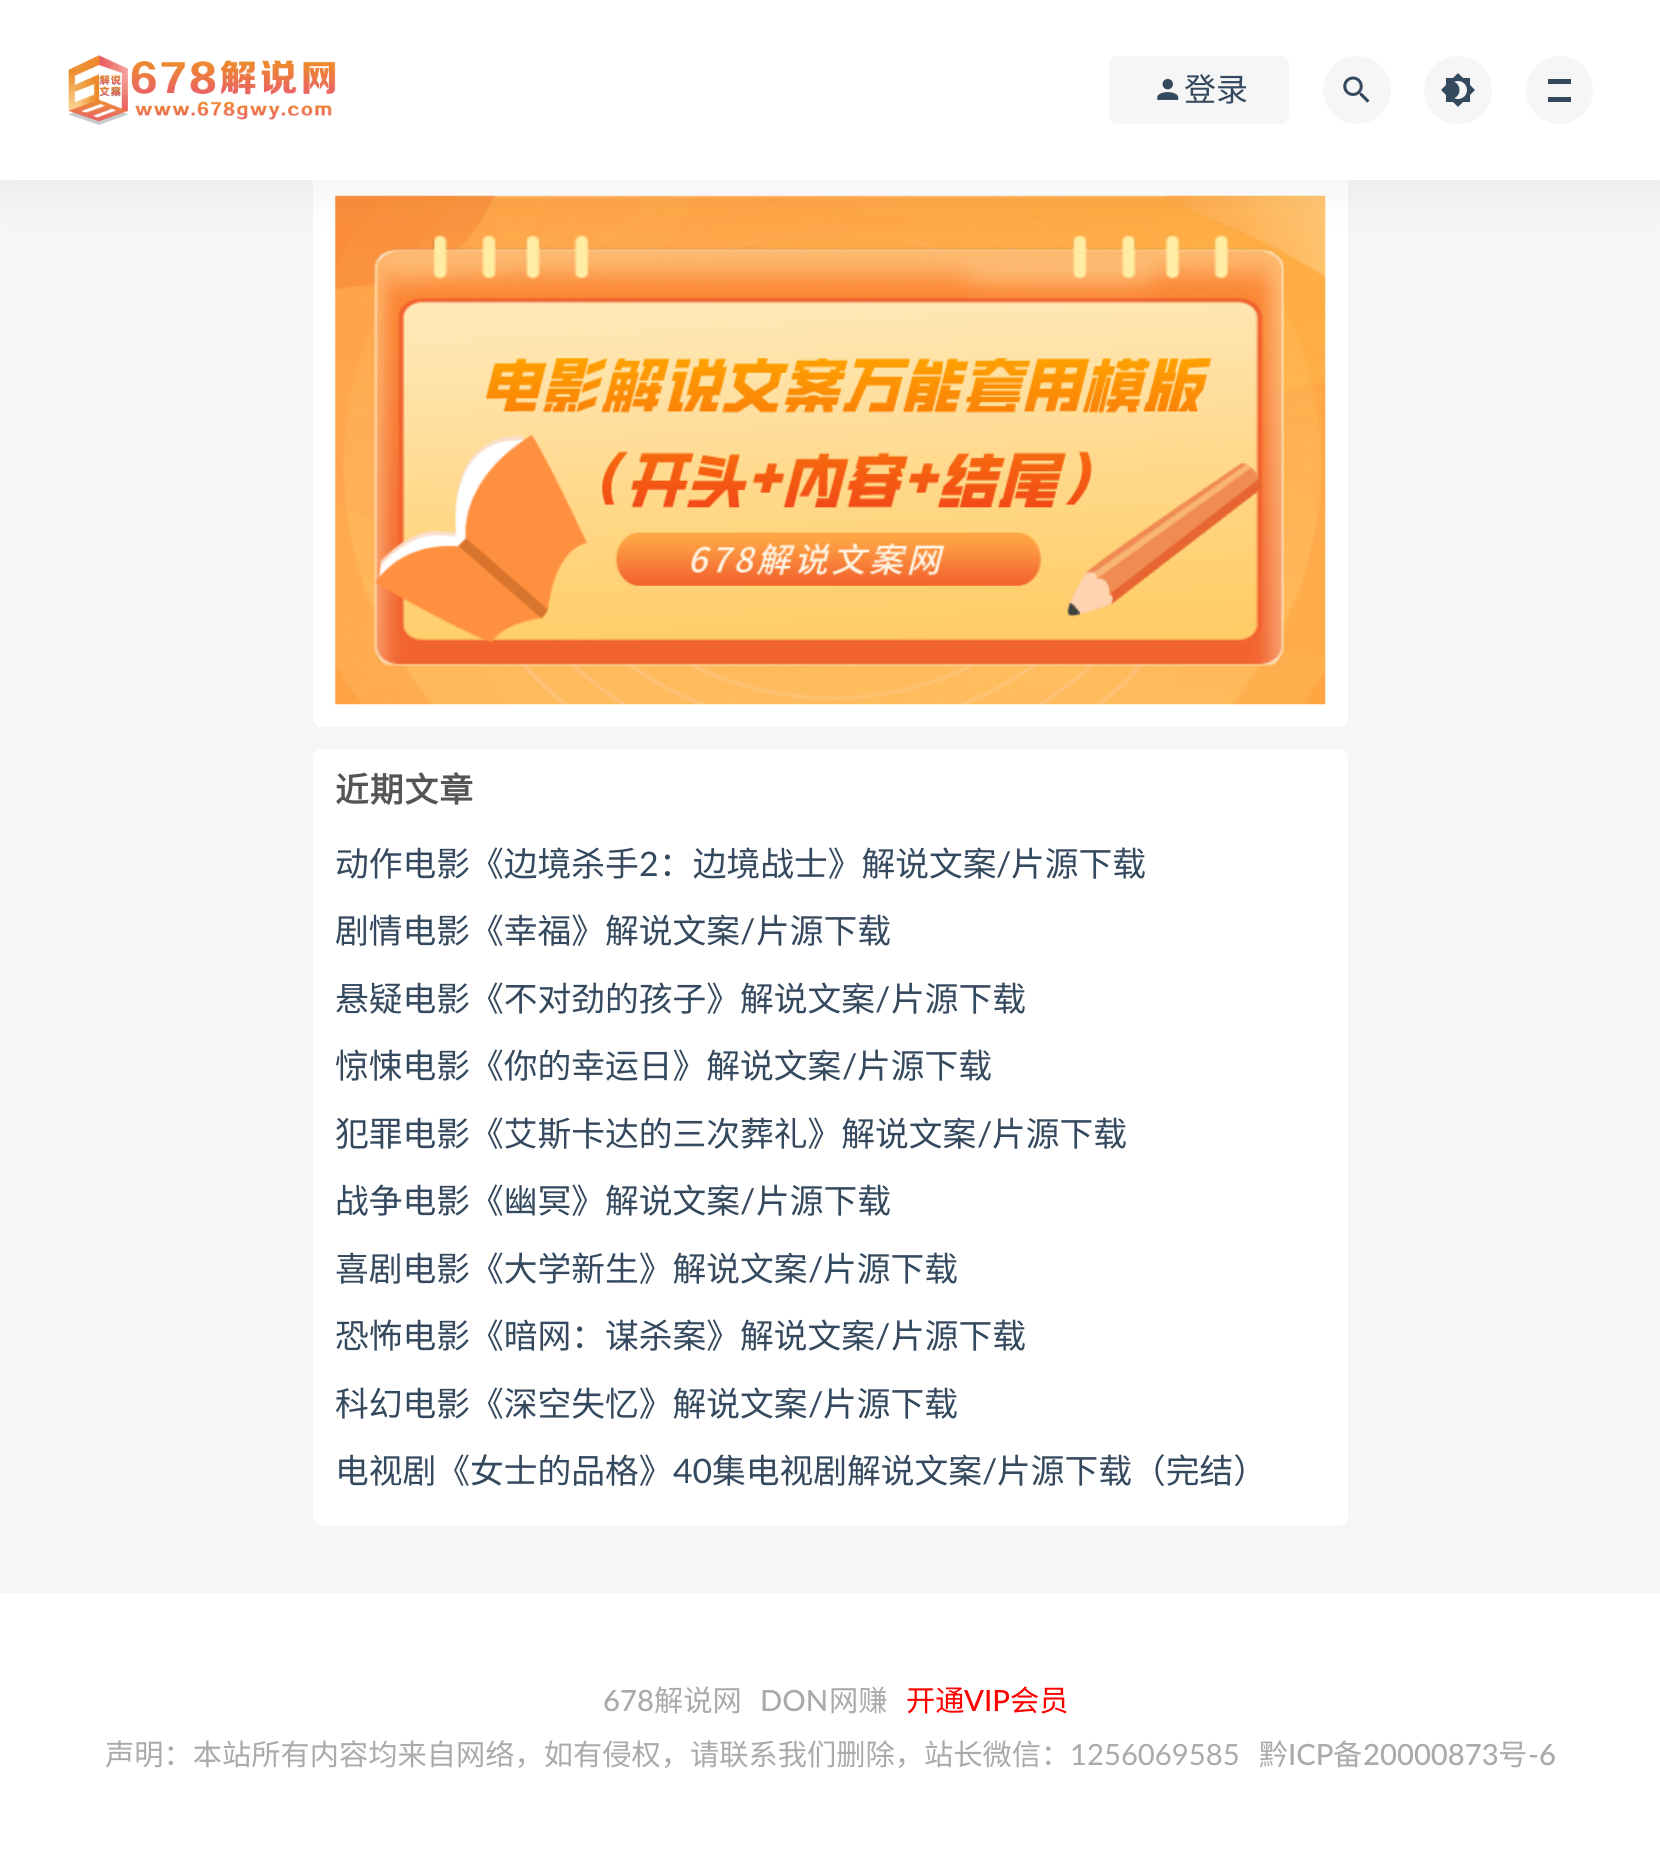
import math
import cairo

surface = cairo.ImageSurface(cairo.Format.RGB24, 1660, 1868)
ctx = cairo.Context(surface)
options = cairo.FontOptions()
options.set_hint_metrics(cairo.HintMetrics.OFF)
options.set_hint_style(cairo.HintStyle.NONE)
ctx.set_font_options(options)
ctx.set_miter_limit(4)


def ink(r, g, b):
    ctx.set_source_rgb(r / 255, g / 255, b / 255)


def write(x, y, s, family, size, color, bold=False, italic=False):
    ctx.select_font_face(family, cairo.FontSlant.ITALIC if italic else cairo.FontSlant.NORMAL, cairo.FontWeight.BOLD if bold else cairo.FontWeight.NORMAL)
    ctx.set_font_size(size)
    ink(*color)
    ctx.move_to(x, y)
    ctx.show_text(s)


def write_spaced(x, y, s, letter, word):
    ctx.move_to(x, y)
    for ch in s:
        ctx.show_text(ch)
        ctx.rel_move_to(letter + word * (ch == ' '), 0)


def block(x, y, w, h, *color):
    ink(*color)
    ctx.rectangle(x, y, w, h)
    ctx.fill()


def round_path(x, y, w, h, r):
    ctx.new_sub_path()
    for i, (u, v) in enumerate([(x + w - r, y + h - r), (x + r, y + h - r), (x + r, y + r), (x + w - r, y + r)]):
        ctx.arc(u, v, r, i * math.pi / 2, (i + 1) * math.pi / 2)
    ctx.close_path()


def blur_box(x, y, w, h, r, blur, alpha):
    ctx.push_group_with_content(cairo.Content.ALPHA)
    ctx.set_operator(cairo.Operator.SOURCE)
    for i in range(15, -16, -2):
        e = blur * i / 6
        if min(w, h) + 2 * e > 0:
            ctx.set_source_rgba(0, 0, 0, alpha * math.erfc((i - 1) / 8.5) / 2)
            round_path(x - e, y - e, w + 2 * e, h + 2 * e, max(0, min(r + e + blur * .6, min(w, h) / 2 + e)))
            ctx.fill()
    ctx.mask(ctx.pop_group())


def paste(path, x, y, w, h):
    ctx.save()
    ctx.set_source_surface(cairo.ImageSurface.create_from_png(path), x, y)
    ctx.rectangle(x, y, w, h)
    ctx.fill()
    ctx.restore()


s1 = dict(family="Noto Sans CJK SC", size=32, color=(52, 73, 94))
s2 = dict(family="Noto Sans CJK SC", size=33.75, color=(52, 73, 94))
s3 = dict(family="Lato", size=33.75, color=(52, 73, 94))
s4 = dict(family="Lato Medium", size=29.25, color=(170, 170, 170))
s5 = dict(family="Noto Sans CJK SC", size=29.25, color=(170, 170, 170))
s6 = dict(family="Noto Sans CJK SC", size=29.25, color=(255, 0, 0))
s7 = dict(family="Lato Medium", size=29.25, color=(255, 0, 0))
s8 = dict(family="Lato", size=29.25, color=(170, 170, 170))

ink(246, 246, 246)
ctx.paint()
ink(255, 255, 255)
round_path(313, 173, 1035, 554, 9)
ctx.fill()
paste("pic5.png", 335, 195, 991, 510)
ink(0, 0, 0)
blur_box(0, 0, 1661, 180, 0, 34, 0.07)
block(0, 0, 1660, 180, 255, 255, 255)
paste("pic1.png", 68, 55, 268, 70)
ink(246, 246, 246)
round_path(1109, 56, 180, 68, 9)
ctx.fill()
paste("pic2.png", 1157, 78, 22, 22)
write(1184, 101, "登录", **s1)
ink(246, 246, 246)
ctx.new_path()
ctx.arc(1357, 90, 34, 0, 2 * math.pi)
ctx.fill()
paste("pic3.png", 1343, 76, 27, 27)
ctx.arc(1458, 90, 34, 0, 2 * math.pi)
ctx.fill()
paste("pic4.png", 1441, 73, 34, 34)
round_path(1526, 56, 67, 68, 33.5)
ctx.fill()
block(1548, 79, 23, 5, 52, 73, 94)
block(1548, 97, 23, 5, 52, 73, 94)
ink(255, 255, 255)
round_path(313, 749, 1035, 777, 9)
ctx.fill()
ctx.select_font_face("Noto Sans CJK SC", cairo.FontSlant.NORMAL, cairo.FontWeight.BOLD)
ctx.set_font_size(33.75)
ink(85, 85, 85)
write_spaced(335, 802, "近期文章", 1, 0)
write(335, 876, "动作电影《边境杀手", **s2)
write(639, 876, "2", **s3)
write(659, 876, "：边境战士》解说文案", **s2)
write(996, 876, "/", **s3)
write(1011, 876, "片源下载", **s2)
write(335, 943, "剧情电影《幸福》解说文案", **s2)
write(740, 943, "/", **s3)
write(756, 943, "片源下载", **s2)
write(335, 1011, "悬疑电影《不对劲的孩子》解说文案", **s2)
write(875, 1011, "/", **s3)
write(891, 1011, "片源下载", **s2)
write(335, 1078, "惊悚电影《你的幸运日》解说文案", **s2)
write(842, 1078, "/", **s3)
write(857, 1078, "片源下载", **s2)
write(335, 1146, "犯罪电影《艾斯卡达的三次葬礼》解说文案", **s2)
write(977, 1146, "/", **s3)
write(992, 1146, "片源下载", **s2)
write(335, 1213, "战争电影《幽冥》解说文案", **s2)
write(740, 1213, "/", **s3)
write(756, 1213, "片源下载", **s2)
write(335, 1281, "喜剧电影《大学新生》解说文案", **s2)
write(808, 1281, "/", **s3)
write(823, 1281, "片源下载", **s2)
write(335, 1348, "恐怖电影《暗网：谋杀案》解说文案", **s2)
write(875, 1348, "/", **s3)
write(891, 1348, "片源下载", **s2)
write(335, 1416, "科幻电影《深空失忆》解说文案", **s2)
write(808, 1416, "/", **s3)
write(823, 1416, "片源下载", **s2)
write(335, 1483, "电视剧《女士的品格》", **s2)
write(673, 1483, "40", **s3)
write(712, 1483, "集电视剧解说文案", **s2)
write(982, 1483, "/", **s3)
write(997, 1483, "片源下载（完结）", **s2)
block(0, 1593, 1660, 275, 255, 255, 255)
write(603, 1711, "678", **s4)
write(654, 1711, "解说网", **s5)
write(760, 1711, "DON", **s4)
write(829, 1711, "网赚", **s5)
write(906, 1711, "开通", **s6)
write(964, 1711, "VIP", **s7)
write(1010, 1711, "会员", **s6)
write(105, 1765, "声明：本站所有内容均来自网络，如有侵权，请联系我们删除，站长微信：", **s5)
write(1070, 1765, "1256069585", **s8)
write(1259, 1765, "黔", **s5)
write(1288, 1765, "ICP", **s4)
write(1333, 1765, "备", **s5)
write(1363, 1765, "20000873", **s4)
write(1498, 1765, "号", **s5)
write(1528, 1765, "-6", **s4)
surface.write_to_png("screenshot.png")
